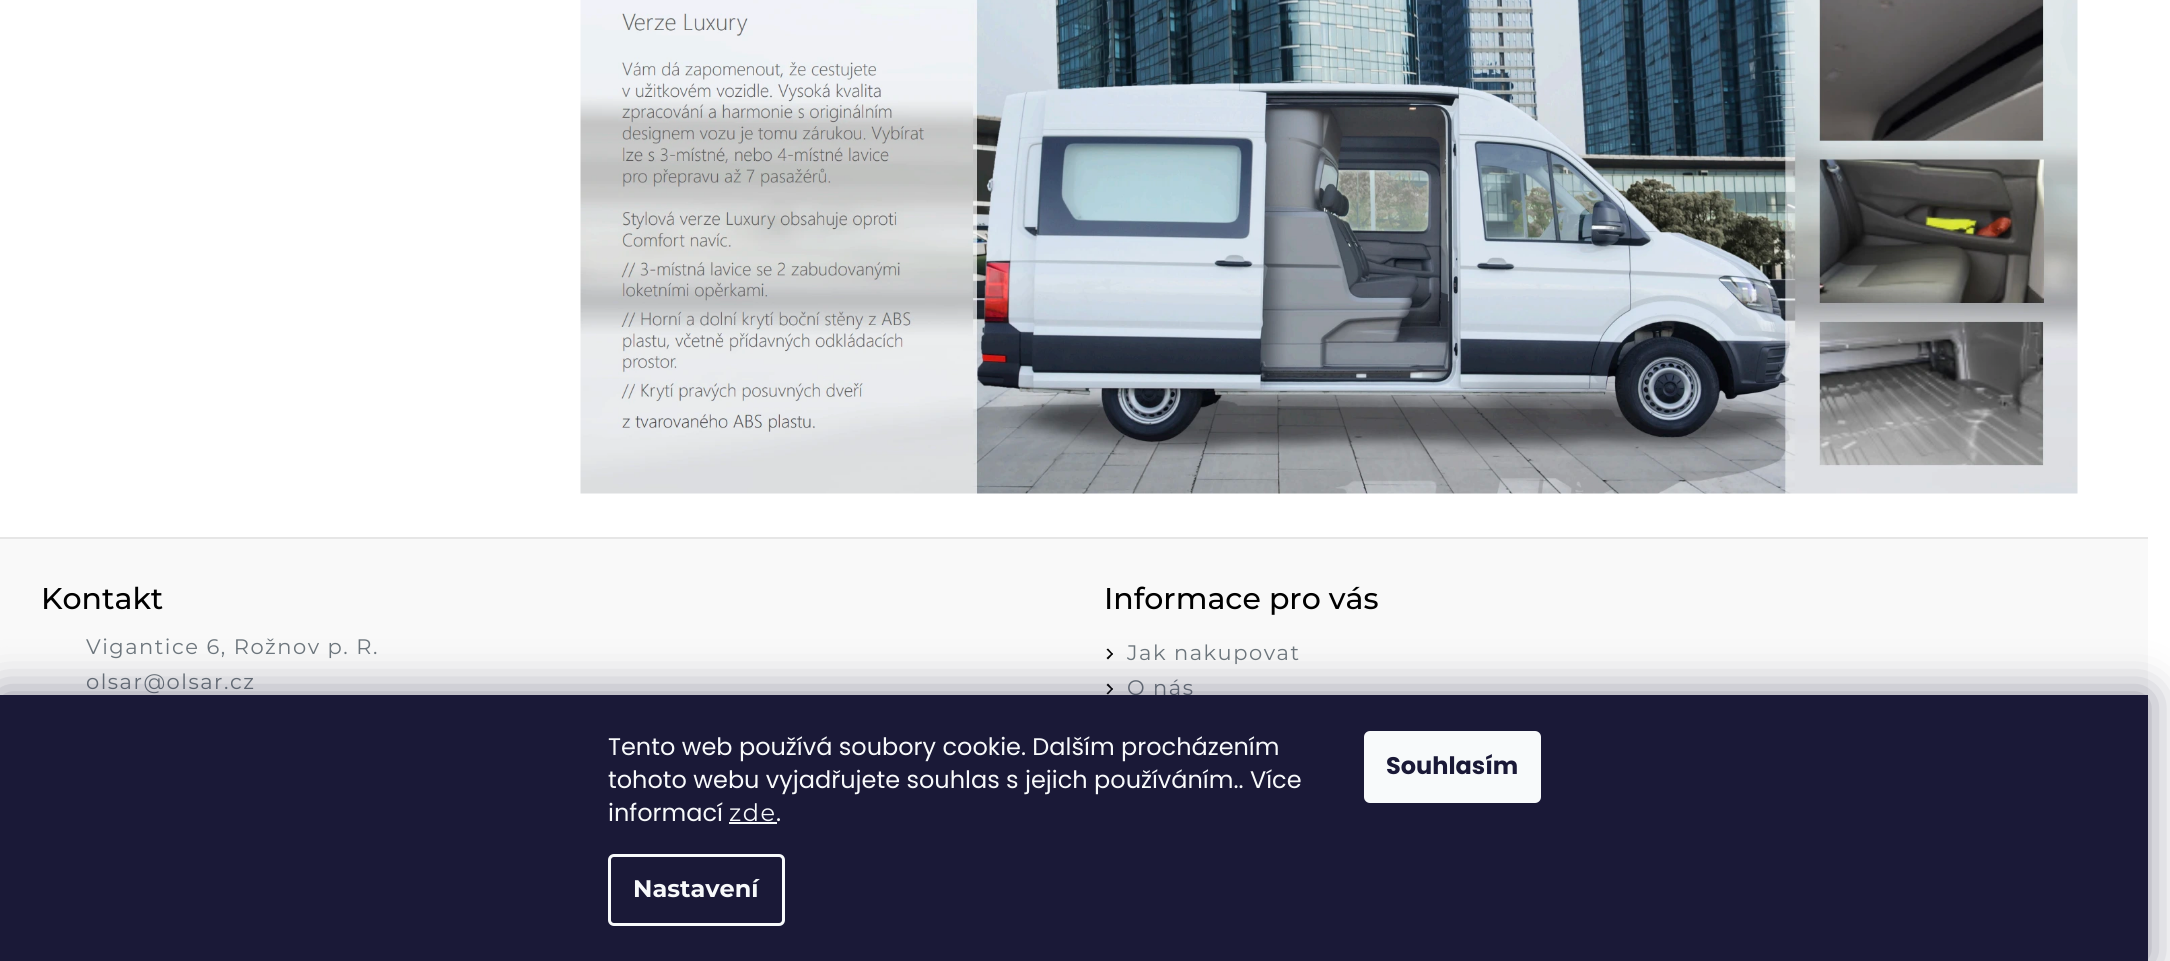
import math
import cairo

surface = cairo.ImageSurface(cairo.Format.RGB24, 2170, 961)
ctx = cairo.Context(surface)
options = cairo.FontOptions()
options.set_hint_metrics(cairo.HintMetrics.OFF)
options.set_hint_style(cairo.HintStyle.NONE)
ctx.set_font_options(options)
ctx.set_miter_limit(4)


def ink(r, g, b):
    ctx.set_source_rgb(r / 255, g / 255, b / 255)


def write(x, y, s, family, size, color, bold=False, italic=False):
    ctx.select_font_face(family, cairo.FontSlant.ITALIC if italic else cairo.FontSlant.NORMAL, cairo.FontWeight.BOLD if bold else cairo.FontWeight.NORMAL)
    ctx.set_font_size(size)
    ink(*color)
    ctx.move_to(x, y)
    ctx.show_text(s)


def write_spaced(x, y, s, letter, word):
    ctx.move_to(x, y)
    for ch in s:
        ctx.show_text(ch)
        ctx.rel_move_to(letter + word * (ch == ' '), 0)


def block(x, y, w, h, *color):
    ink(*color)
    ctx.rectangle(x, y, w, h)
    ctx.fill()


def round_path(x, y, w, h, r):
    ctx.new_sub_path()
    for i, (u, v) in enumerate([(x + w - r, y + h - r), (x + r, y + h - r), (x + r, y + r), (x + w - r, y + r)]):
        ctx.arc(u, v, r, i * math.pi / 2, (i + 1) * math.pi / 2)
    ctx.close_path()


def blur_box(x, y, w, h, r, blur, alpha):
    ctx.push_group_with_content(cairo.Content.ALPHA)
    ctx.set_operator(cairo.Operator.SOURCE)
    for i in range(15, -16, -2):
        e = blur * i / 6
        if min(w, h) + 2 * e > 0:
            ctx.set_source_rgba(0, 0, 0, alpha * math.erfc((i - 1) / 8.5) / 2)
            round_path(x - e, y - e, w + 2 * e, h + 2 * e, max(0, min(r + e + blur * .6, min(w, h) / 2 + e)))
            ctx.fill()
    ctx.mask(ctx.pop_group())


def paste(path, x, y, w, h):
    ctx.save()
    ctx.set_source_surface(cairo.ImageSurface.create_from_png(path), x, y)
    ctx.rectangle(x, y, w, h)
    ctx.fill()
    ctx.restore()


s1 = dict(family="Montserrat Medium", size=30, color=(0, 0, 0))
s2 = dict(family="Poppins", size=24, color=(248, 250, 251))
s3 = dict(family="Montserrat", size=24, color=(248, 250, 251), bold=True)
s4 = dict(family="Poppins", size=24, color=(26, 25, 55), bold=True)

ink(255, 255, 255)
ctx.paint()
paste("pic1.png", 580, 0, 1498, 494)
block(0, 539, 2148, 156, 249, 249, 249)
block(0, 537, 2148, 2, 230, 230, 230)
write(41, 609, "Kontakt", **s1)
ctx.select_font_face("Montserrat")
ctx.set_font_size(21)
ink(109, 118, 125)
write_spaced(86, 654, "Vigantice 6, Rožnov p. R.", 1.5, 0)
write_spaced(86, 689, "olsar@olsar.cz", 1.5, 0)
write(1104, 609, "Informace pro vás", **s1)
ctx.new_path()
ctx.move_to(1106.5, 649.5)
ctx.line_to(1108, 648.5)
ctx.line_to(1113, 654)
ctx.line_to(1112, 655)
ctx.close_path()
ctx.fill()
ctx.new_path()
ctx.move_to(1106.5, 658)
ctx.line_to(1112, 653)
ctx.line_to(1113, 654)
ctx.line_to(1108, 659.5)
ctx.close_path()
ctx.fill()
ctx.select_font_face("Montserrat")
ctx.set_font_size(21)
ink(109, 118, 125)
write_spaced(1127, 660, "Jak nakupovat", 1.5, 0)
ink(0, 0, 0)
ctx.new_path()
ctx.move_to(1106.5, 685)
ctx.line_to(1108, 683.5)
ctx.line_to(1113, 689)
ctx.line_to(1112, 690)
ctx.close_path()
ctx.fill()
ctx.new_path()
ctx.move_to(1106.5, 693.5)
ctx.line_to(1112, 688)
ctx.line_to(1113, 689)
ctx.line_to(1108, 694.5)
ctx.close_path()
ctx.fill()
ink(109, 118, 125)
write_spaced(1127, 695, "O nás", 1.5, 0)
ink(27, 25, 57)
blur_box(0, 695, 2148, 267, 0, 22.5, 0.5)
block(0, 695, 2148, 266, 26, 25, 55)
write(608, 755, "Tento web používá soubory cookie. Dalším procházením", **s2)
write(608, 788, "tohoto webu vyjadřujete souhlas s jejich používáním.. Více", **s2)
write(608, 821, "informací", **s2)
ctx.select_font_face("Montserrat")
write_spaced(729, 821, "zde", 1.5, 0)
block(729, 822, 48, 2, 248, 250, 251)
write(776, 821, ".", **s2)
round_path(609.5, 855.5, 174, 69, 4.5)
ctx.set_line_width(3)
ctx.stroke()
write(633, 897, "Nastavení", **s3)
round_path(1364, 731, 177, 72, 6)
ctx.fill()
write(1386, 774, "Souhlasím", **s4)
surface.write_to_png("screenshot.png")
